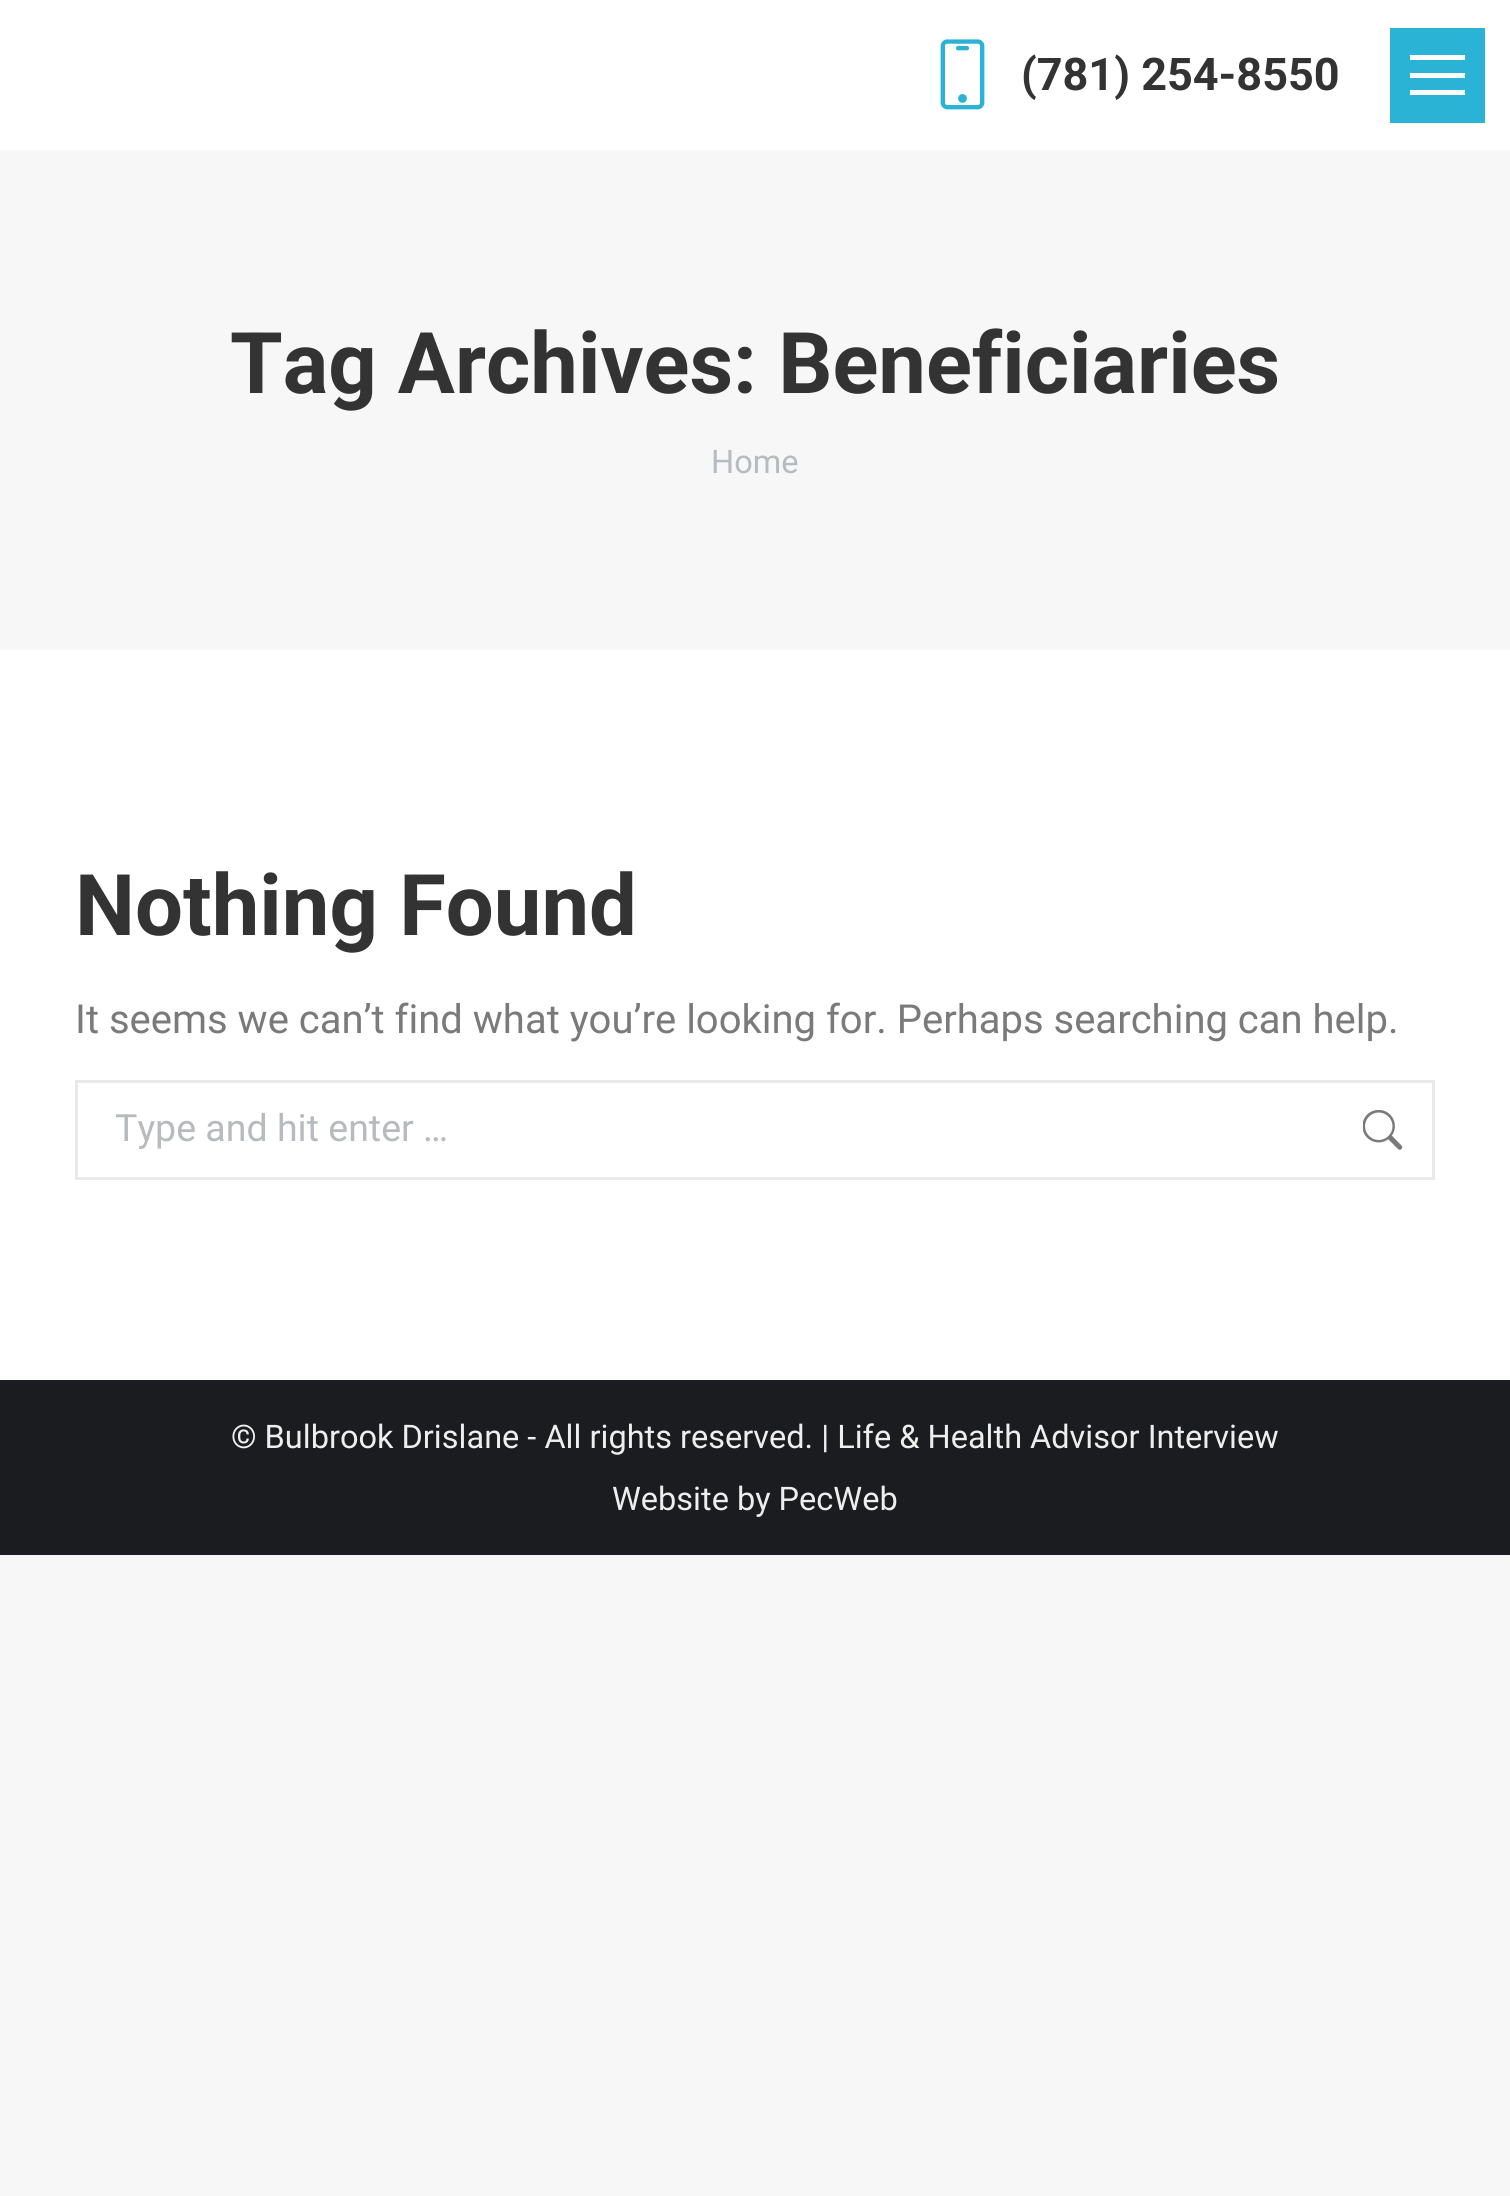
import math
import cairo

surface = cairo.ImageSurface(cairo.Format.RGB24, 1510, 2196)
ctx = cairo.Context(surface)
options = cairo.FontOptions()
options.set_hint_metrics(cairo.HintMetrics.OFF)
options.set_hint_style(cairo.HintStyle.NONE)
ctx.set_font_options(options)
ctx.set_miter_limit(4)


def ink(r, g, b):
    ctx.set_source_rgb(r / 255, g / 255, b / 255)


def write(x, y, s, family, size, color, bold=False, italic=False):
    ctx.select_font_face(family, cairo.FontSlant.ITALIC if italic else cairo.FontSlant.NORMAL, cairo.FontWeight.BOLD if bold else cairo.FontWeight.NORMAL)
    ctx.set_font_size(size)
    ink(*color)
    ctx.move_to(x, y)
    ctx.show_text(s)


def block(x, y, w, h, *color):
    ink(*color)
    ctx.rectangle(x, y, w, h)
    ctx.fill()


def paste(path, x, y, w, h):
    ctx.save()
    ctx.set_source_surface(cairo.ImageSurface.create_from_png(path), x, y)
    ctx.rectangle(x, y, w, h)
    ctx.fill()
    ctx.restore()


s1 = dict(family="Roboto", size=45, color=(51, 51, 51), bold=True)
s2 = dict(family="Roboto", size=85, color=(51, 51, 51), bold=True)
s3 = dict(family="Roboto", size=32.5, color=(183, 186, 190))
s4 = dict(family="Roboto", size=40, color=(122, 122, 122))
s5 = dict(family="Roboto", size=37.5, color=(183, 186, 190))
s6 = dict(family="Roboto", size=32.5, color=(238, 238, 238))

ink(247, 247, 247)
ctx.paint()
block(0, 0, 1510, 1380, 255, 255, 255)
paste("pic1.png", 940, 39, 45, 71)
write(1021, 90, "(781) 254-8550", **s1)
block(1390, 28, 95, 95, 43, 179, 213)
block(1410, 55, 55, 5, 255, 255, 255)
block(1410, 73, 55, 5, 255, 255, 255)
block(1410, 90, 55, 5, 255, 255, 255)
block(0, 150, 1510, 500, 247, 247, 247)
write(230, 393, "Tag Archives: Beneficiaries", **s2)
write(711, 473, "Home", **s3)
write(75, 935, "Nothing Found", **s2)
write(75, 1033, "It seems we can’t find what you’re looking for. Perhaps searching can help.", **s4)
ctx.rectangle(76.5, 1081.5, 1357, 97)
ink(233, 233, 233)
ctx.set_line_width(3)
ctx.stroke()
write(115, 1141, "Type and hit enter …", **s5)
paste("pic2.png", 1363, 1110, 40, 40)
block(0, 1380, 1510, 175, 26, 28, 32)
write(231, 1448, "© Bulbrook Drislane - All rights reserved. | Life & Health Advisor Interview", **s6)
write(612, 1510, "Website by PecWeb", **s6)
surface.write_to_png("screenshot.png")
